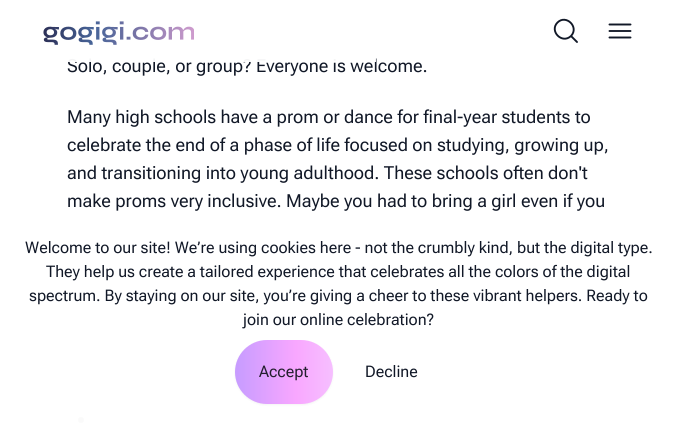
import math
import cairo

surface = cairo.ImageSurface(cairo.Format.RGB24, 677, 428)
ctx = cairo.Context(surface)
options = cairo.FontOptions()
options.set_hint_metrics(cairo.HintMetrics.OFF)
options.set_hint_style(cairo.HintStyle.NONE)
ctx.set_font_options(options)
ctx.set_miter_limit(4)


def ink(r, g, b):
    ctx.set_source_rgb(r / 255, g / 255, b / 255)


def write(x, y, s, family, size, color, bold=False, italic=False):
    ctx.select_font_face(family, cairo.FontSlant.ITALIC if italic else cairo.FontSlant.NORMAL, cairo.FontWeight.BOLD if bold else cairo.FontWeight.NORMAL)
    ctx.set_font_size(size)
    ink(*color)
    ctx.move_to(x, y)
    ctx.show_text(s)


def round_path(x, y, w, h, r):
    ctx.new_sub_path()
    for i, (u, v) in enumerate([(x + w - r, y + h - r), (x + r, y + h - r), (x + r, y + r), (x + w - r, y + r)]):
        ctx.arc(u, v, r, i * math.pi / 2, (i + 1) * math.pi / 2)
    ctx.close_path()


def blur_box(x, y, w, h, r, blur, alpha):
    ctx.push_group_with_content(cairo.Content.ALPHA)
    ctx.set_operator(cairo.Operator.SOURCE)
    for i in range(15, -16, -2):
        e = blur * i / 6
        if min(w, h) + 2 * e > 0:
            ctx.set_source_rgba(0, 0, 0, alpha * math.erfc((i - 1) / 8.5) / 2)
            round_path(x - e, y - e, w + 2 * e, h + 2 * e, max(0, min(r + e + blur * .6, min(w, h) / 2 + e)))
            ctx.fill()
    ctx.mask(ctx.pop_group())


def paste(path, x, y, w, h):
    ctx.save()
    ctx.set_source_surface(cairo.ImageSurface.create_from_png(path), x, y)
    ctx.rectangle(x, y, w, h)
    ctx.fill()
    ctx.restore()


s1 = dict(family="Roboto Flex", size=18, color=(17, 24, 39))
s2 = dict(family="Roboto Flex", size=16, color=(17, 24, 39))
s3 = dict(family="Roboto Flex", size=16, color=(35, 31, 46))

ink(255, 255, 255)
ctx.paint()
write(67, 72, "Solo, couple, or group? Everyone is welcome.", **s1)
ctx.set_source_rgba(1, 1, 1, 0.95)
ctx.rectangle(67, 58, 309, 4)
ctx.fill()
paste("pic1.png", 43, 21, 151, 24)
ctx.new_path()
ctx.move_to(577, 42)
ctx.line_to(571, 36)
ctx.move_to(571, 36)
ctx.curve_to(579.5, 27, 566, 14, 557.5, 22.5)
ctx.curve_to(549, 31, 562, 44.5, 571, 36)
ctx.close_path()
ink(17, 24, 39)
ctx.set_line_width(1.9)
ctx.set_line_cap(cairo.LineCap.ROUND)
ctx.set_line_join(cairo.LineJoin.ROUND)
ctx.stroke()
ctx.new_path()
ctx.move_to(609.5, 24.5)
ctx.line_to(630.5, 24.5)
ctx.move_to(609.5, 31)
ctx.line_to(630.5, 31)
ctx.move_to(609.5, 37.5)
ctx.line_to(630.5, 37.5)
ctx.stroke()
write(67, 123, "Many high schools have a prom or dance for final-year students to", **s1)
write(67, 151, "celebrate the end of a phase of life focused on studying, growing up,", **s1)
write(67, 179, "and transitioning into young adulthood. These schools often don't", **s1)
write(67, 207, "make proms very inclusive. Maybe you had to bring a girl even if you", **s1)
ink(152, 152, 152)
ctx.new_path()
ctx.arc(81, 420, 3, 0, 2 * math.pi)
ctx.fill()
ctx.set_source_rgba(1, 1, 1, 0.95)
ctx.rectangle(78, 417, 6, 6)
ctx.fill()
write(25, 253, "Welcome to our site! We’re using cookies here - not the crumbly kind, but the digital type.", **s2)
write(46, 277, "They help us create a tailored experience that celebrates all the colors of the digital", **s2)
write(29, 301, "spectrum. By staying on our site, you’re giving a cheer to these vibrant helpers. Ready to", **s2)
write(243, 325, "join our online celebration?", **s2)
ink(0, 0, 0)
blur_box(235, 341, 98, 64, 32, 1, 0.05)
gradient = cairo.LinearGradient(235, 372, 333, 372)
gradient.add_color_stop_rgba(0.02, 0.784, 0.612, 1, 1)
gradient.add_color_stop_rgba(0.62, 0.973, 0.655, 1, 1)
gradient.add_color_stop_rgba(1, 0.965, 0.749, 1, 1)
ctx.set_source(gradient)
round_path(235, 340, 98, 64, 32)
ctx.fill()
write(259, 377, "Accept", **s3)
write(365, 377, "Decline", **s2)
surface.write_to_png("screenshot.png")
